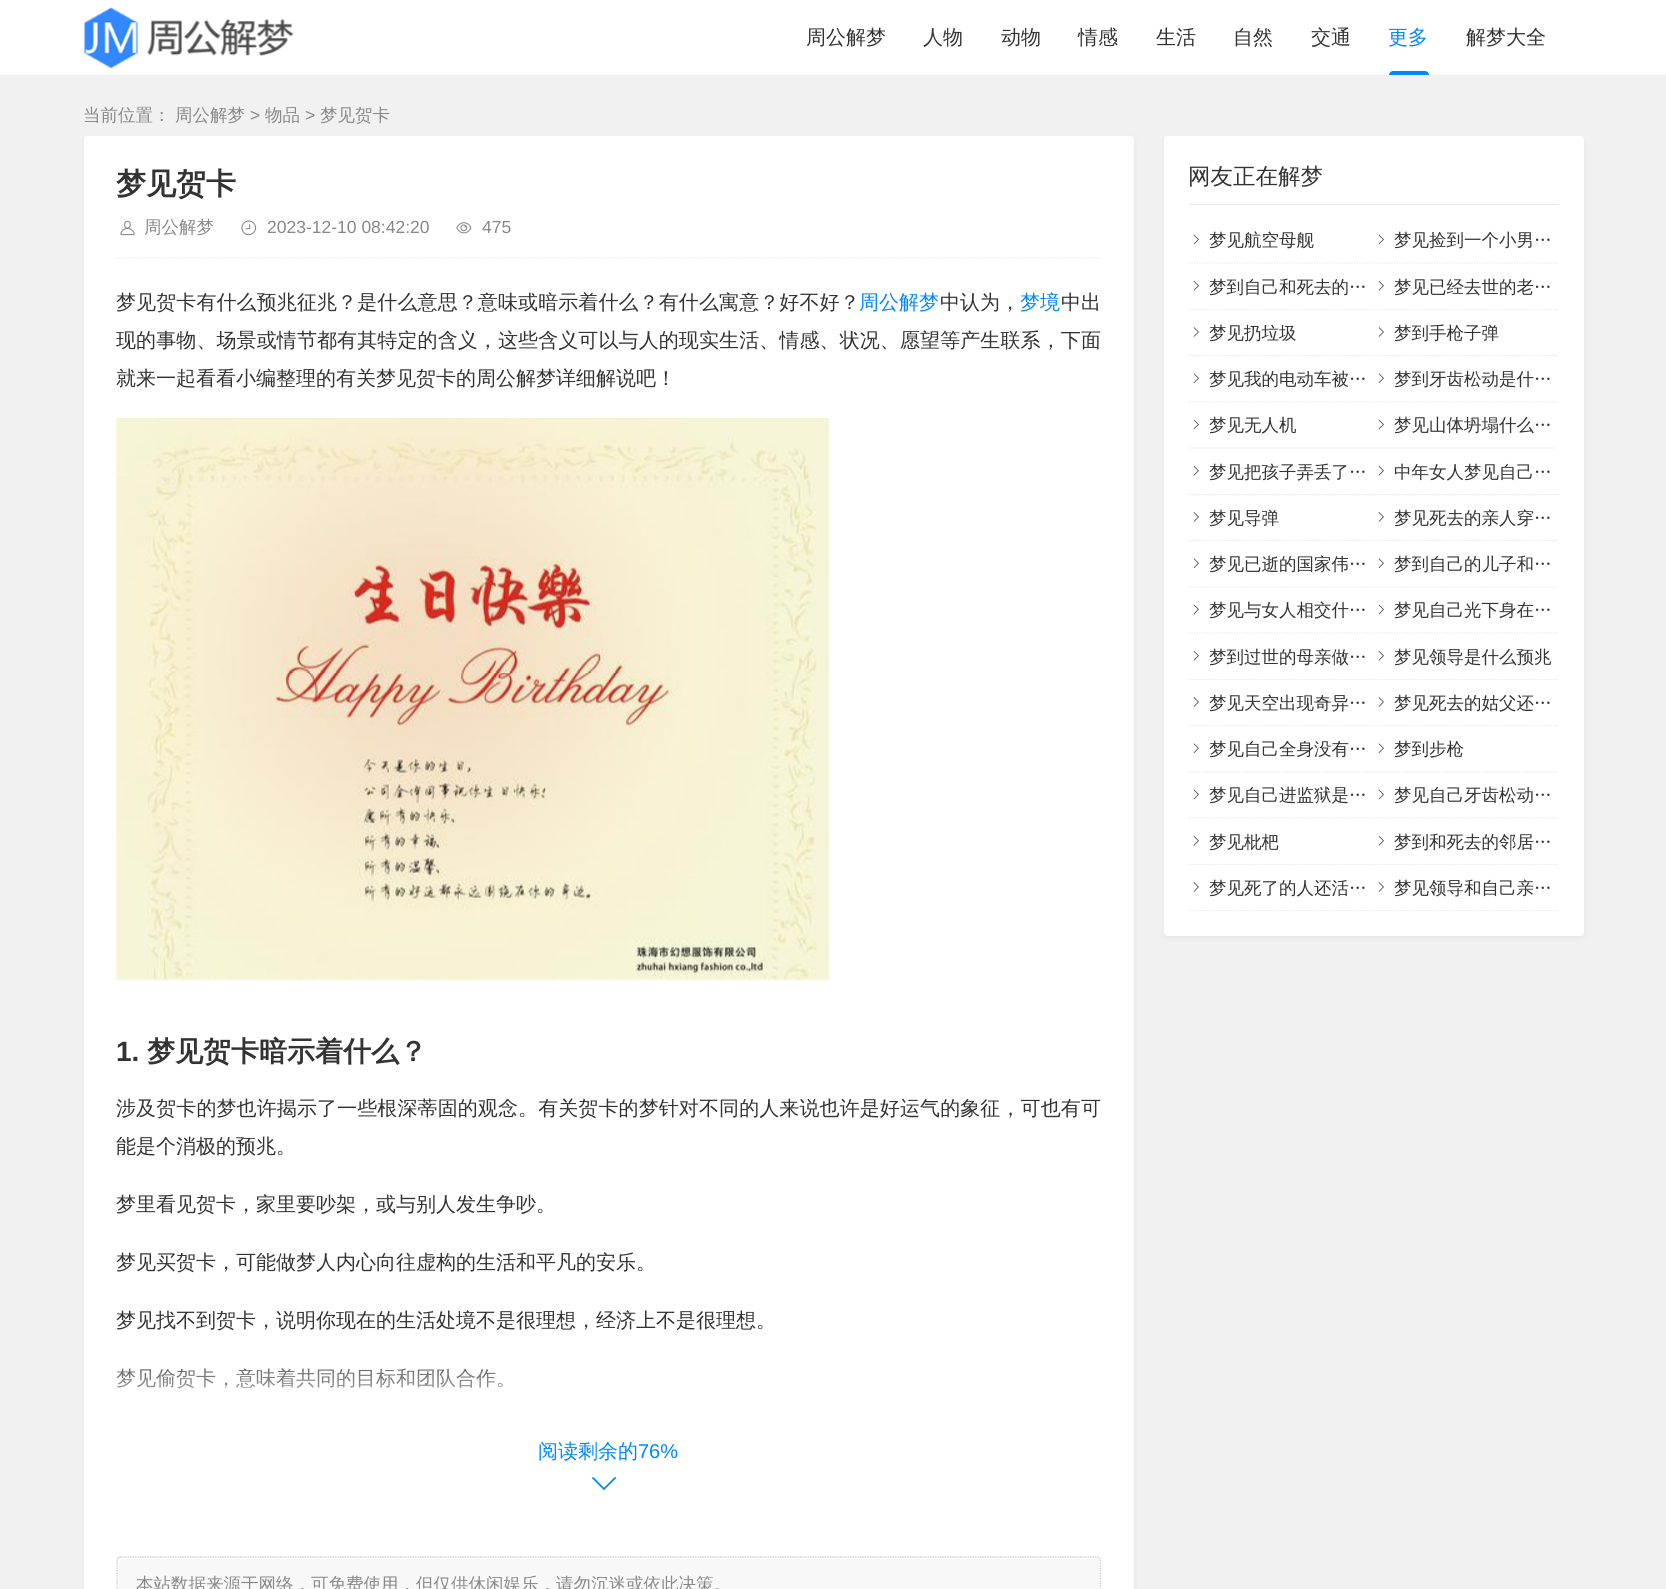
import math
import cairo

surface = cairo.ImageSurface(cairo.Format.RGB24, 1666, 1589)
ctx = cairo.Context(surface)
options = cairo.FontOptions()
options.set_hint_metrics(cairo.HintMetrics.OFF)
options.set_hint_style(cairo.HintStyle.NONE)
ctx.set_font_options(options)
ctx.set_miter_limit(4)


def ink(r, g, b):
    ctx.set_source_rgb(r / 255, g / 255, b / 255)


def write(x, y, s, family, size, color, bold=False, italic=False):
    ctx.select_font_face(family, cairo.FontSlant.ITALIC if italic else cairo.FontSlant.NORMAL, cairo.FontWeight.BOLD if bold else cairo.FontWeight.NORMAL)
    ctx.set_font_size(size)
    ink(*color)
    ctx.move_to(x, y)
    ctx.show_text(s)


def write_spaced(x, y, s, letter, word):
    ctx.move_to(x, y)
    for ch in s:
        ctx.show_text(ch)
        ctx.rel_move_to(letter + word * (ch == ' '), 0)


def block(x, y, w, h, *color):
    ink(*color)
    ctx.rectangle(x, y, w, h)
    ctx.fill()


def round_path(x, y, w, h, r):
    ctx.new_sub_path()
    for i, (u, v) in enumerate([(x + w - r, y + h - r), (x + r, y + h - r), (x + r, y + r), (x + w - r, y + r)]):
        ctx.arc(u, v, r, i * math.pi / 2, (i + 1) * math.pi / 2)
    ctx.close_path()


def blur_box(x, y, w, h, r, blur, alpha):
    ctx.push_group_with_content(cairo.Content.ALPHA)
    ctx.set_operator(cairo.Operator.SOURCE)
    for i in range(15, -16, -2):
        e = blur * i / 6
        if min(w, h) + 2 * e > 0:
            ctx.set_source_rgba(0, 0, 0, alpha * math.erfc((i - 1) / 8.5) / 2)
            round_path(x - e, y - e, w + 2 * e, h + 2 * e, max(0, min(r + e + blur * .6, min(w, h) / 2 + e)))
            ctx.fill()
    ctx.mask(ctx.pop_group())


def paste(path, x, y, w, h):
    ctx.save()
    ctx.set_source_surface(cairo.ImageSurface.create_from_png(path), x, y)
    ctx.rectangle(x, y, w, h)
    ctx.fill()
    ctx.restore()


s1 = dict(family="WenQuanYi Zen Hei Medium", size=20, color=(51, 51, 51))
s2 = dict(family="WenQuanYi Zen Hei Medium", size=20, color=(1, 136, 251))
s3 = dict(family="WenQuanYi Zen Hei Medium", size=17.5, color=(136, 136, 136))
s4 = dict(family="Liberation Sans", size=17.5, color=(136, 136, 136))
s5 = dict(family="WenQuanYi Zen Hei", size=30, color=(51, 51, 51), bold=True)
s6 = dict(family="Liberation Sans", size=28, color=(51, 51, 51), bold=True)
s7 = dict(family="WenQuanYi Zen Hei", size=28, color=(51, 51, 51), bold=True)
s8 = dict(family="Liberation Sans", size=20, color=(1, 136, 251))
s9 = dict(family="WenQuanYi Zen Hei Medium", size=22.5, color=(51, 51, 51))
s10 = dict(family="WenQuanYi Zen Hei Medium", size=17.5, color=(51, 51, 51))

ink(241, 241, 241)
ctx.paint()
block(0, 0, 1666, 75, 255, 255, 255)
block(0, 75, 1666, 1, 238, 238, 238)
paste("pic1.png", 84, 7, 210, 62)
write(806, 44, "周公解梦", **s1)
write(923, 44, "人物", **s1)
write(1001, 44, "动物", **s1)
write(1078, 44, "情感", **s1)
write(1156, 44, "生活", **s1)
write(1233, 44, "自然", **s1)
write(1311, 44, "交通", **s1)
write(1388, 44, "更多", **s2)
ctx.new_path()
ctx.move_to(1393, 71)
ctx.line_to(1425, 71)
ctx.curve_to(1427, 71, 1429, 73, 1429, 75)
ctx.line_to(1389, 75)
ctx.curve_to(1389, 73, 1391, 71, 1393, 71)
ctx.close_path()
ctx.fill()
write(1466, 44, "解梦大全", **s1)
write(83, 121, "当前位置：", **s3)
write(175, 121, "周公解梦", **s3)
write(250, 121, ">", **s4)
write(265, 121, "物品", **s3)
write(305, 121, ">", **s4)
write(320, 121, "梦见贺卡", **s3)
ink(0, 0, 0)
blur_box(84, 138, 1050, 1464, 4, 3, 0.05)
ink(255, 255, 255)
round_path(84, 136, 1050, 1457, 4)
ctx.fill()
write(116, 194, "梦见贺卡", **s5)
paste("pic2.png", 120, 220, 15, 16)
write(144, 233, "周公解梦", **s3)
paste("pic3.png", 241, 220, 16, 16)
write(267, 233, "2023-12-10 08:42:20", **s4)
paste("pic4.png", 456, 222, 16, 12)
write(482, 233, "475", **s4)
ctx.new_path()
ctx.move_to(116, 258)
ctx.line_to(1101, 258)
ink(228, 232, 235)
ctx.set_line_width(1.2)
ctx.set_dash([1.25, 1.25])
ctx.stroke()
ctx.select_font_face("WenQuanYi Zen Hei Medium")
ctx.set_font_size(20)
ink(51, 51, 51)
write_spaced(116, 309, "梦见贺卡有什么预兆征兆？是什么意思？意味或暗示着什么？有什么寓意？好不好？", 0.1, 0)
write(859, 309, "周公解梦", **s2)
write(940, 309, "中认为，", **s1)
write(1020, 309, "梦境", **s2)
write(1061, 309, "中出", **s1)
write_spaced(116, 347, "现的事物、场景或情节都有其特定的含义，这些含义可以与人的现实生活、情感、状况、愿望等产生联系，下面", 0.1, 0)
write(116, 385, "就来一起看看小编整理的有关梦见贺卡的周公解梦详细解说吧！", **s1)
paste("pic5.png", 116, 418, 717, 563)
write(116, 1061, "1.", **s6)
write(147, 1061, "梦见贺卡暗示着什么？", **s7)
ctx.select_font_face("WenQuanYi Zen Hei Medium")
ctx.set_font_size(20)
write_spaced(116, 1115, "涉及贺卡的梦也许揭示了一些根深蒂固的观念。有关贺卡的梦针对不同的人来说也许是好运气的象征，可也有可", 0.1, 0)
write(116, 1153, "能是个消极的预兆。", **s1)
write(116, 1211, "梦里看见贺卡，家里要吵架，或与别人发生争吵。", **s1)
write(116, 1269, "梦见买贺卡，可能做梦人内心向往虚构的生活和平凡的安乐。", **s1)
write(116, 1327, "梦见找不到贺卡，说明你现在的生活处境不是很理想，经济上不是很理想。", **s1)
write(116, 1385, "梦见偷贺卡，意味着共同的目标和团队合作。", **s1)
gradient = cairo.LinearGradient(609, 1344, 609, 1531)
gradient.add_color_stop_rgba(0, 1, 1, 1, 0)
gradient.add_color_stop_rgba(0.5, 1, 1, 1, 1)
ctx.set_source(gradient)
ctx.rectangle(116, 1368, 386, 21)
ctx.fill()
write(538, 1458, "阅读剩余的", **s2)
write(638, 1458, "76%", **s8)
paste("pic6.png", 592, 1477, 24, 13)
ink(248, 248, 248)
round_path(116, 1556, 985, 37, 4)
ctx.fill()
ctx.new_path()
ctx.move_to(120, 1557)
ctx.line_to(1097.5, 1557)
ctx.curve_to(1099, 1557, 1100.5, 1558.5, 1100.5, 1560)
ctx.line_to(1100.5, 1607.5)
ctx.curve_to(1100.5, 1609, 1099, 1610.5, 1097.5, 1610.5)
ctx.line_to(120, 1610.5)
ctx.curve_to(118.5, 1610.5, 117, 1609, 117, 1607.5)
ctx.line_to(117, 1560)
ctx.curve_to(117, 1558.5, 118.5, 1557, 120, 1557)
ctx.close_path()
ink(204, 204, 204)
ctx.stroke()
write(136, 1590, "本站数据来源于网络，可免费使用，但仅供休闲娱乐，请勿沉迷或依此决策。", **s3)
ink(0, 0, 0)
blur_box(1164, 138, 420, 800, 4, 3, 0.05)
ink(255, 255, 255)
round_path(1164, 136, 420, 800, 4)
ctx.fill()
block(1189, 204, 370, 1, 228, 232, 235)
write(1188, 184, "网友正在解梦", **s9)
ctx.new_path()
ctx.move_to(1189, 263)
ctx.line_to(1374, 263)
ink(228, 232, 235)
ctx.stroke()
paste("pic7.png", 1193, 234, 6, 11)
write(1209, 246, "梦见航空母舰", **s10)
ctx.new_path()
ctx.move_to(1374, 263)
ctx.line_to(1559, 263)
ink(228, 232, 235)
ctx.stroke()
paste("pic7.png", 1378, 234, 6, 11)
write(1394, 246, "梦见捡到一个小男…", **s10)
ctx.new_path()
ctx.move_to(1189, 309.5)
ctx.line_to(1374, 309.5)
ink(228, 232, 235)
ctx.stroke()
paste("pic8.png", 1193, 281, 6, 10)
write(1209, 293, "梦到自己和死去的…", **s10)
ctx.new_path()
ctx.move_to(1374, 309.5)
ctx.line_to(1559, 309.5)
ink(228, 232, 235)
ctx.stroke()
paste("pic8.png", 1378, 281, 6, 10)
write(1394, 293, "梦见已经去世的老…", **s10)
ctx.new_path()
ctx.move_to(1189, 355.5)
ctx.line_to(1374, 355.5)
ink(228, 232, 235)
ctx.stroke()
paste("pic9.png", 1193, 327, 6, 10)
write(1209, 339, "梦见扔垃圾", **s10)
ctx.new_path()
ctx.move_to(1374, 355.5)
ctx.line_to(1559, 355.5)
ink(228, 232, 235)
ctx.stroke()
paste("pic9.png", 1378, 327, 6, 10)
write(1394, 339, "梦到手枪子弹", **s10)
ctx.new_path()
ctx.move_to(1189, 402)
ctx.line_to(1374, 402)
ink(228, 232, 235)
ctx.stroke()
paste("pic10.png", 1193, 373, 6, 10)
write(1209, 385, "梦见我的电动车被…", **s10)
ctx.new_path()
ctx.move_to(1374, 402)
ctx.line_to(1559, 402)
ink(228, 232, 235)
ctx.stroke()
paste("pic10.png", 1378, 373, 6, 10)
write(1394, 385, "梦到牙齿松动是什…", **s10)
ctx.new_path()
ctx.move_to(1189, 448)
ctx.line_to(1374, 448)
ink(228, 232, 235)
ctx.stroke()
paste("pic7.png", 1193, 419, 6, 11)
write(1209, 431, "梦见无人机", **s10)
ctx.new_path()
ctx.move_to(1374, 448)
ctx.line_to(1559, 448)
ink(228, 232, 235)
ctx.stroke()
paste("pic7.png", 1378, 419, 6, 11)
write(1394, 431, "梦见山体坍塌什么…", **s10)
ctx.new_path()
ctx.move_to(1189, 494.5)
ctx.line_to(1374, 494.5)
ink(228, 232, 235)
ctx.stroke()
paste("pic8.png", 1193, 466, 6, 10)
write(1209, 478, "梦见把孩子弄丢了…", **s10)
ctx.new_path()
ctx.move_to(1374, 494.5)
ctx.line_to(1559, 494.5)
ink(228, 232, 235)
ctx.stroke()
paste("pic8.png", 1378, 466, 6, 10)
write(1394, 478, "中年女人梦见自己…", **s10)
ctx.new_path()
ctx.move_to(1189, 540.5)
ctx.line_to(1374, 540.5)
ink(228, 232, 235)
ctx.stroke()
paste("pic9.png", 1193, 512, 6, 10)
write(1209, 524, "梦见导弹", **s10)
ctx.new_path()
ctx.move_to(1374, 540.5)
ctx.line_to(1559, 540.5)
ink(228, 232, 235)
ctx.stroke()
paste("pic9.png", 1378, 512, 6, 10)
write(1394, 524, "梦见死去的亲人穿…", **s10)
ctx.new_path()
ctx.move_to(1189, 587)
ctx.line_to(1374, 587)
ink(228, 232, 235)
ctx.stroke()
paste("pic10.png", 1193, 558, 6, 10)
write(1209, 570, "梦见已逝的国家伟…", **s10)
ctx.new_path()
ctx.move_to(1374, 587)
ctx.line_to(1559, 587)
ink(228, 232, 235)
ctx.stroke()
paste("pic10.png", 1378, 558, 6, 10)
write(1394, 570, "梦到自己的儿子和…", **s10)
ctx.new_path()
ctx.move_to(1189, 633)
ctx.line_to(1374, 633)
ink(228, 232, 235)
ctx.stroke()
paste("pic7.png", 1193, 604, 6, 11)
write(1209, 616, "梦见与女人相交什…", **s10)
ctx.new_path()
ctx.move_to(1374, 633)
ctx.line_to(1559, 633)
ink(228, 232, 235)
ctx.stroke()
paste("pic7.png", 1378, 604, 6, 11)
write(1394, 616, "梦见自己光下身在…", **s10)
ctx.new_path()
ctx.move_to(1189, 679.5)
ctx.line_to(1374, 679.5)
ink(228, 232, 235)
ctx.stroke()
paste("pic8.png", 1193, 651, 6, 10)
write(1209, 663, "梦到过世的母亲做…", **s10)
ctx.new_path()
ctx.move_to(1374, 679.5)
ctx.line_to(1559, 679.5)
ink(228, 232, 235)
ctx.stroke()
paste("pic8.png", 1378, 651, 6, 10)
write(1394, 663, "梦见领导是什么预兆", **s10)
ctx.new_path()
ctx.move_to(1189, 725.5)
ctx.line_to(1374, 725.5)
ink(228, 232, 235)
ctx.stroke()
paste("pic9.png", 1193, 697, 6, 10)
write(1209, 709, "梦见天空出现奇异…", **s10)
ctx.new_path()
ctx.move_to(1374, 725.5)
ctx.line_to(1559, 725.5)
ink(228, 232, 235)
ctx.stroke()
paste("pic9.png", 1378, 697, 6, 10)
write(1394, 709, "梦见死去的姑父还…", **s10)
ctx.new_path()
ctx.move_to(1189, 772)
ctx.line_to(1374, 772)
ink(228, 232, 235)
ctx.stroke()
paste("pic10.png", 1193, 743, 6, 10)
write(1209, 755, "梦见自己全身没有…", **s10)
ctx.new_path()
ctx.move_to(1374, 772)
ctx.line_to(1559, 772)
ink(228, 232, 235)
ctx.stroke()
paste("pic10.png", 1378, 743, 6, 10)
write(1394, 755, "梦到步枪", **s10)
ctx.new_path()
ctx.move_to(1189, 818)
ctx.line_to(1374, 818)
ink(228, 232, 235)
ctx.stroke()
paste("pic7.png", 1193, 789, 6, 11)
write(1209, 801, "梦见自己进监狱是…", **s10)
ctx.new_path()
ctx.move_to(1374, 818)
ctx.line_to(1559, 818)
ink(228, 232, 235)
ctx.stroke()
paste("pic7.png", 1378, 789, 6, 11)
write(1394, 801, "梦见自己牙齿松动…", **s10)
ctx.new_path()
ctx.move_to(1189, 864.5)
ctx.line_to(1374, 864.5)
ink(228, 232, 235)
ctx.stroke()
paste("pic8.png", 1193, 836, 6, 10)
write(1209, 848, "梦见枇杷", **s10)
ctx.new_path()
ctx.move_to(1374, 864.5)
ctx.line_to(1559, 864.5)
ink(228, 232, 235)
ctx.stroke()
paste("pic8.png", 1378, 836, 6, 10)
write(1394, 848, "梦到和死去的邻居…", **s10)
ctx.save()
ctx.rectangle(1189, 218, 370, 693)
ctx.clip()
ctx.new_path()
ctx.move_to(1189, 910.5)
ctx.line_to(1374, 910.5)
ink(228, 232, 235)
ctx.stroke()
ctx.restore()
paste("pic9.png", 1193, 882, 6, 10)
write(1209, 894, "梦见死了的人还活…", **s10)
ctx.save()
ctx.rectangle(1189, 218, 370, 693)
ctx.clip()
ctx.new_path()
ctx.move_to(1374, 910.5)
ctx.line_to(1559, 910.5)
ink(228, 232, 235)
ctx.stroke()
ctx.restore()
paste("pic9.png", 1378, 882, 6, 10)
write(1394, 894, "梦见领导和自己亲…", **s10)
surface.write_to_png("screenshot.png")
